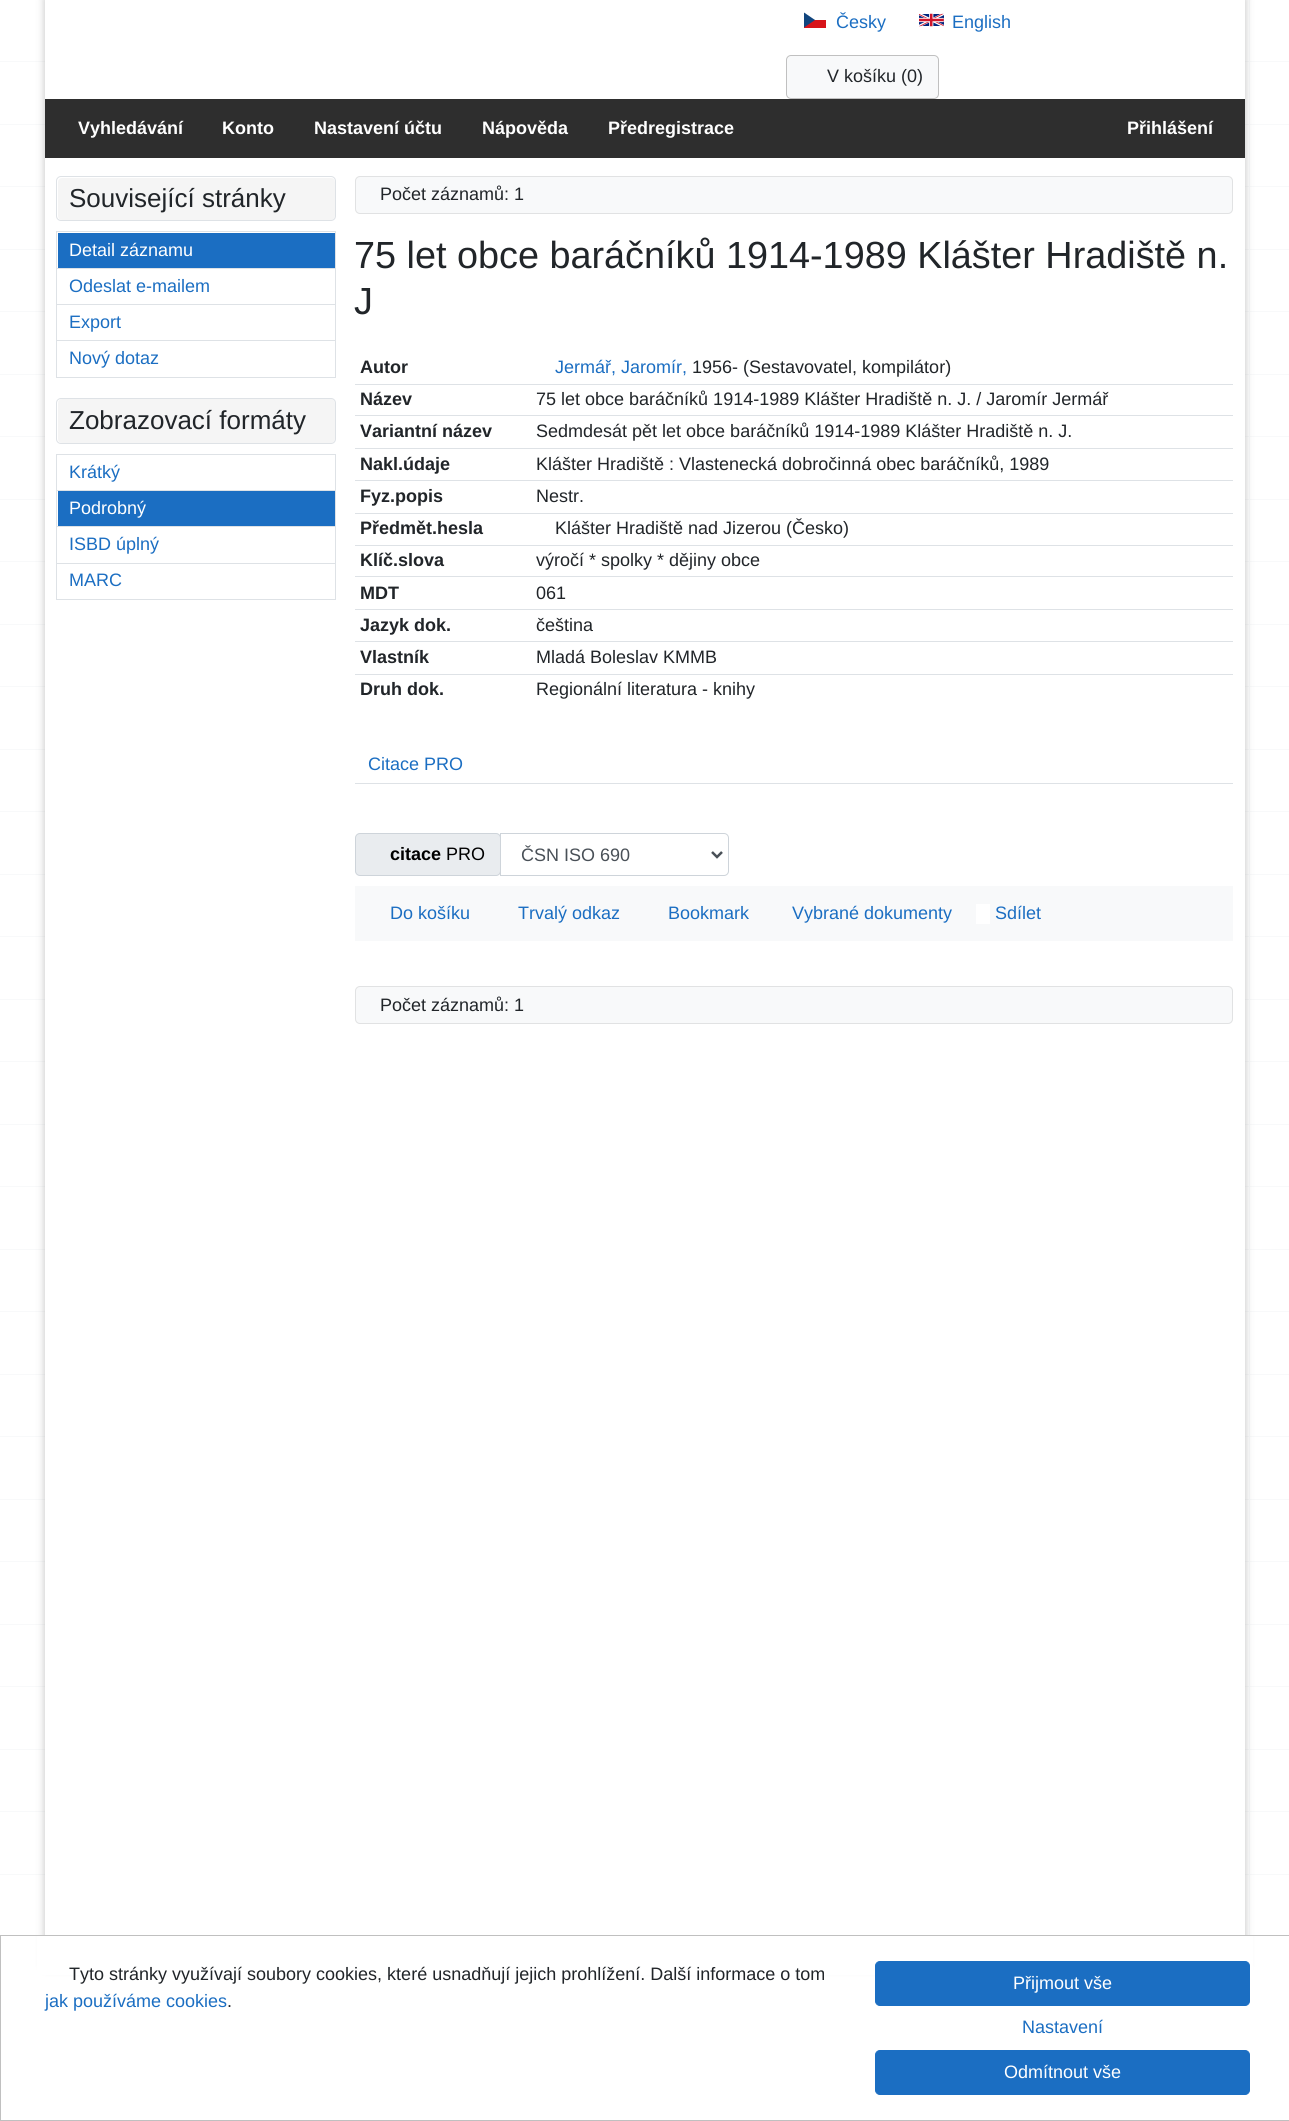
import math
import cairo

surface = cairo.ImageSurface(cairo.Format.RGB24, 1289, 2121)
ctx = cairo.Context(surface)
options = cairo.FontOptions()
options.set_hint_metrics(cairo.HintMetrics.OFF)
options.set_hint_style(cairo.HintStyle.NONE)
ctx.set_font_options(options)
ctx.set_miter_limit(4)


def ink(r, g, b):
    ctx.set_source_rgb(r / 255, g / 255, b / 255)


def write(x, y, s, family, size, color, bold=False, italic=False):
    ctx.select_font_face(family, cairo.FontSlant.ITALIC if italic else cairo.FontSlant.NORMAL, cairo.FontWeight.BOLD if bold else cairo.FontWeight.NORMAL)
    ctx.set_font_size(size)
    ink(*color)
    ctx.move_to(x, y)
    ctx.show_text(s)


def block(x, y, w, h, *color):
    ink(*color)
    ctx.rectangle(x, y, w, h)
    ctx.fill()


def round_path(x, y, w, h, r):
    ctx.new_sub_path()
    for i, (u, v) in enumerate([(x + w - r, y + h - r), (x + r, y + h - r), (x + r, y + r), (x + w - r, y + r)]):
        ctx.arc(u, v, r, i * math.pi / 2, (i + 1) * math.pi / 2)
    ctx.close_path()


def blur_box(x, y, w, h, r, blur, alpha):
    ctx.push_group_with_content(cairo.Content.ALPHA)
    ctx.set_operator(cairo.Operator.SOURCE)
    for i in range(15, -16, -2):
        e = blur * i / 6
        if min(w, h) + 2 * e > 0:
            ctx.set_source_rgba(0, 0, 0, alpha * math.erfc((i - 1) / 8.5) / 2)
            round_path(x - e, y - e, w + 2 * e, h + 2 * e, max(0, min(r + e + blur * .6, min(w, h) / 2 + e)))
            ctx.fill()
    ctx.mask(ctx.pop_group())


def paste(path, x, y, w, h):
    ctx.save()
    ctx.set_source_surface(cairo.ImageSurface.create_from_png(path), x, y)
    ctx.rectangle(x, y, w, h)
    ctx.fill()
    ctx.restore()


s1 = dict(family="Liberation Sans", size=18, color=(27, 110, 194))
s2 = dict(family="Liberation Sans", size=18, color=(33, 37, 41))
s3 = dict(family="Liberation Sans", size=18, color=(255, 255, 255), bold=True)
s4 = dict(family="Liberation Sans", size=26, color=(33, 37, 41))
s5 = dict(family="Liberation Sans", size=18, color=(255, 255, 255))
s6 = dict(family="Liberation Sans", size=37.8, color=(33, 37, 41))
s7 = dict(family="Liberation Sans", size=18, color=(33, 37, 41), bold=True)
s8 = dict(family="Liberation Sans", size=18, color=(0, 0, 0), bold=True)
s9 = dict(family="Liberation Sans", size=18, color=(0, 0, 0))
s10 = dict(family="Liberation Sans", size=18, color=(73, 80, 87))

ink(255, 255, 255)
ctx.paint()
paste("pic1.png", 1249, 0, 1, 1935)
paste("pic2.png", 0, 61, 1289, 1814)
ink(0, 0, 0)
blur_box(44, -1, 1202, 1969, 0, 4, 0.2)
block(45, 0, 1200, 1935, 255, 255, 255)
block(804, 20, 22, 8, 215, 20, 26)
ink(17, 69, 126)
ctx.new_path()
ctx.move_to(815, 20)
ctx.line_to(804, 12.5)
ctx.line_to(804, 27.5)
ctx.close_path()
ctx.fill()
write(836, 28, "Česky", **s1)
paste("pic3.png", 919, 13, 25, 14)
write(952, 28, "English", **s1)
ink(248, 249, 250)
round_path(786.5, 55.5, 152, 43, 4.5)
ctx.fill_preserve()
ink(192, 192, 192)
ctx.set_line_width(1)
ctx.stroke()
write(827, 82, "V košíku (0)", **s2)
block(45, 99, 1200, 59, 46, 46, 46)
write(78, 134, "Vyhledávání", **s3)
write(222, 134, "Konto", **s3)
write(314, 134, "Nastavení účtu", **s3)
write(482, 134, "Nápověda", **s3)
write(608, 134, "Předregistrace", **s3)
write(1127, 134, "Přihlášení", **s3)
ink(245, 245, 245)
round_path(58, 178, 277, 42, 4)
ctx.fill()
round_path(56.5, 176.5, 279, 44, 4.5)
ink(222, 226, 230)
ctx.stroke()
write(69, 207, "Související stránky", **s4)
block(56, 231, 280, 1, 222, 226, 230)
block(335, 231, 1, 37, 222, 226, 230)
block(56, 231, 1, 37, 222, 226, 230)
block(58, 233, 277, 35, 27, 110, 194)
write(69, 256, "Detail záznamu", **s5)
block(56, 268, 280, 1, 222, 226, 230)
block(335, 268, 1, 36, 222, 226, 230)
block(56, 268, 1, 36, 222, 226, 230)
write(69, 292, "Odeslat e-mailem", **s1)
block(56, 304, 280, 1, 222, 226, 230)
block(335, 304, 1, 36, 222, 226, 230)
block(56, 304, 1, 36, 222, 226, 230)
write(69, 328, "Export", **s1)
ctx.rectangle(56.5, 340.5, 279, 37)
ink(222, 226, 230)
ctx.stroke()
write(69, 364, "Nový dotaz", **s1)
ink(245, 245, 245)
round_path(58, 399, 277, 44, 4)
ctx.fill()
round_path(56.5, 398.5, 279, 45, 4.5)
ink(222, 226, 230)
ctx.stroke()
write(69, 429, "Zobrazovací formáty", **s4)
block(56, 454, 280, 1, 222, 226, 230)
block(335, 454, 1, 36, 222, 226, 230)
block(56, 454, 1, 36, 222, 226, 230)
write(69, 478, "Krátký", **s1)
block(56, 490, 280, 1, 222, 226, 230)
block(335, 490, 1, 36, 222, 226, 230)
block(56, 490, 1, 36, 222, 226, 230)
block(58, 491, 277, 35, 27, 110, 194)
write(69, 514, "Podrobný", **s5)
block(56, 526, 280, 1, 222, 226, 230)
block(335, 526, 1, 37, 222, 226, 230)
block(56, 526, 1, 37, 222, 226, 230)
write(69, 550, "ISBD úplný", **s1)
ctx.rectangle(56.5, 563.5, 279, 36)
ink(222, 226, 230)
ctx.stroke()
write(69, 586, "MARC", **s1)
ink(248, 249, 250)
round_path(355, 176, 878, 38, 5)
ctx.fill()
round_path(355.5, 176.5, 877, 37, 4.5)
ctx.set_source_rgba(0.2, 0.2, 0.2, 0.12)
ctx.stroke()
write(380, 200, "Počet záznamů: 1", **s2)
write(354, 268, "75 let obce baráčníků 1914-1989 Klášter Hradiště n.", **s6)
write(354, 314, "J", **s6)
write(360, 373, "Autor", **s7)
write(555, 373, "Jermář, Jaromír,", **s1)
write(692, 373, "1956- (Sestavovatel, kompilátor)", **s2)
write(360, 405, "Název", **s7)
block(355, 384, 878, 1, 222, 226, 230)
write(536, 405, "75 let obce baráčníků 1914-1989 Klášter Hradiště n. J. / Jaromír Jermář", **s2)
write(360, 437, "Variantní název", **s7)
block(355, 415, 878, 1, 222, 226, 230)
write(536, 437, "Sedmdesát pět let obce baráčníků 1914-1989 Klášter Hradiště n. J.", **s2)
write(360, 470, "Nakl.údaje", **s7)
block(355, 448, 878, 1, 222, 226, 230)
write(536, 470, "Klášter Hradiště : Vlastenecká dobročinná obec baráčníků, 1989", **s2)
write(360, 502, "Fyz.popis", **s7)
block(355, 480, 878, 1, 222, 226, 230)
write(536, 502, "Nestr.", **s2)
write(360, 534, "Předmět.hesla", **s7)
block(355, 513, 878, 1, 222, 226, 230)
write(555, 534, "Klášter Hradiště nad Jizerou (Česko)", **s2)
write(360, 566, "Klíč.slova", **s7)
block(355, 545, 878, 1, 222, 226, 230)
write(536, 566, "výročí * spolky * dějiny obce", **s2)
write(360, 599, "MDT", **s7)
block(355, 576, 878, 1, 222, 226, 230)
write(536, 599, "061", **s2)
write(360, 631, "Jazyk dok.", **s7)
block(355, 609, 878, 1, 222, 226, 230)
write(536, 631, "čeština", **s2)
write(360, 663, "Vlastník", **s7)
block(355, 641, 878, 1, 222, 226, 230)
write(536, 663, "Mladá Boleslav KMMB", **s2)
write(360, 695, "Druh dok.", **s7)
block(355, 674, 878, 1, 222, 226, 230)
write(536, 695, "Regionální literatura - knihy", **s2)
block(355, 783, 878, 1, 222, 226, 230)
write(368, 770, "Citace PRO", **s1)
ink(233, 236, 239)
round_path(355.5, 833.5, 145, 42, 4.5)
ctx.fill_preserve()
ink(206, 212, 218)
ctx.stroke()
write(390, 860, "citace", **s8)
write(446, 860, "PRO", **s9)
ctx.new_path()
ctx.move_to(500.5, 833.5)
ctx.line_to(724, 833.5)
ctx.curve_to(726.5, 833.5, 728.5, 835.5, 728.5, 838)
ctx.line_to(728.5, 871)
ctx.curve_to(728.5, 873.5, 726.5, 875.5, 724, 875.5)
ctx.line_to(500.5, 875.5)
ctx.close_path()
ink(206, 212, 218)
ctx.stroke()
ctx.new_path()
ctx.move_to(712, 852)
ctx.line_to(717, 857)
ctx.line_to(722, 852)
ink(73, 80, 87)
ctx.set_line_width(2.5)
ctx.stroke()
write(521, 861, "ČSN ISO 690", **s10)
block(355, 886, 878, 55, 248, 249, 250)
write(390, 919, "Do košíku", **s1)
write(518, 919, "Trvalý odkaz", **s1)
write(668, 919, "Bookmark", **s1)
write(792, 919, "Vybrané dokumenty", **s1)
write(995, 919, "Sdílet", **s1)
block(976, 904, 14, 20, 255, 255, 255)
ink(248, 249, 250)
round_path(355, 986, 878, 38, 5)
ctx.fill()
round_path(355.5, 986.5, 877, 37, 4.5)
ctx.set_source_rgba(0.2, 0.2, 0.2, 0.12)
ctx.set_line_width(1)
ctx.stroke()
write(380, 1011, "Počet záznamů: 1", **s2)
block(37, 1936, 1216, 39, 255, 255, 255)
ctx.rectangle(0.5, 1935.5, 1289, 185)
ink(192, 192, 192)
ctx.stroke()
write(69, 1980, "Tyto stránky využívají soubory cookies, které usnadňují jejich prohlížení. Další informace o tom", **s2)
write(45, 2007, "jak používáme cookies", **s1)
write(227, 2007, ".", **s2)
ink(27, 110, 194)
round_path(875.5, 1961.5, 374, 44, 4.5)
ctx.fill_preserve()
ctx.stroke()
write(1013, 1989, "Přijmout vše", **s5)
write(1022, 2033, "Nastavení", **s1)
round_path(875.5, 2050.5, 374, 44, 4.5)
ctx.fill_preserve()
ctx.stroke()
write(1004, 2078, "Odmítnout vše", **s5)
surface.write_to_png("screenshot.png")
